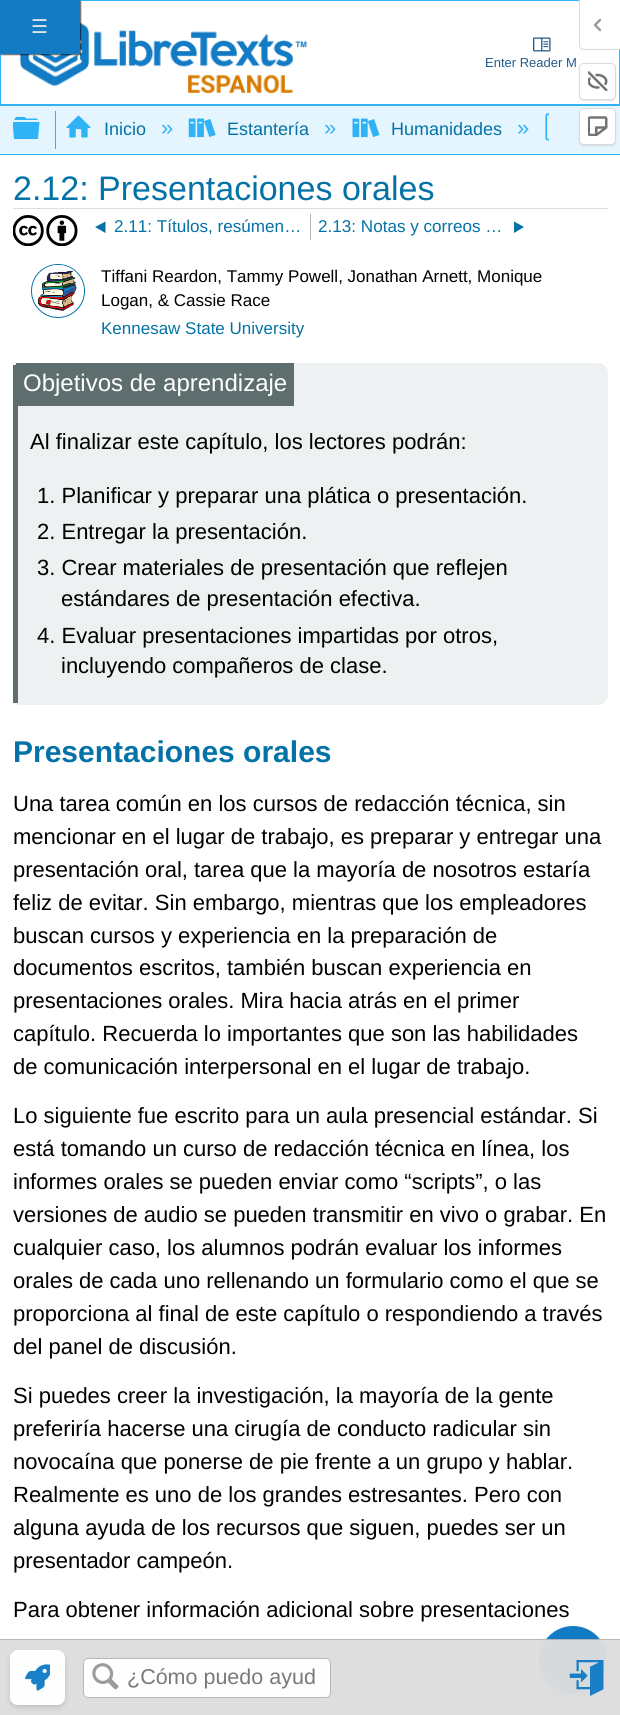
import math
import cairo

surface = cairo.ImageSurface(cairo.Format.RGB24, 620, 1715)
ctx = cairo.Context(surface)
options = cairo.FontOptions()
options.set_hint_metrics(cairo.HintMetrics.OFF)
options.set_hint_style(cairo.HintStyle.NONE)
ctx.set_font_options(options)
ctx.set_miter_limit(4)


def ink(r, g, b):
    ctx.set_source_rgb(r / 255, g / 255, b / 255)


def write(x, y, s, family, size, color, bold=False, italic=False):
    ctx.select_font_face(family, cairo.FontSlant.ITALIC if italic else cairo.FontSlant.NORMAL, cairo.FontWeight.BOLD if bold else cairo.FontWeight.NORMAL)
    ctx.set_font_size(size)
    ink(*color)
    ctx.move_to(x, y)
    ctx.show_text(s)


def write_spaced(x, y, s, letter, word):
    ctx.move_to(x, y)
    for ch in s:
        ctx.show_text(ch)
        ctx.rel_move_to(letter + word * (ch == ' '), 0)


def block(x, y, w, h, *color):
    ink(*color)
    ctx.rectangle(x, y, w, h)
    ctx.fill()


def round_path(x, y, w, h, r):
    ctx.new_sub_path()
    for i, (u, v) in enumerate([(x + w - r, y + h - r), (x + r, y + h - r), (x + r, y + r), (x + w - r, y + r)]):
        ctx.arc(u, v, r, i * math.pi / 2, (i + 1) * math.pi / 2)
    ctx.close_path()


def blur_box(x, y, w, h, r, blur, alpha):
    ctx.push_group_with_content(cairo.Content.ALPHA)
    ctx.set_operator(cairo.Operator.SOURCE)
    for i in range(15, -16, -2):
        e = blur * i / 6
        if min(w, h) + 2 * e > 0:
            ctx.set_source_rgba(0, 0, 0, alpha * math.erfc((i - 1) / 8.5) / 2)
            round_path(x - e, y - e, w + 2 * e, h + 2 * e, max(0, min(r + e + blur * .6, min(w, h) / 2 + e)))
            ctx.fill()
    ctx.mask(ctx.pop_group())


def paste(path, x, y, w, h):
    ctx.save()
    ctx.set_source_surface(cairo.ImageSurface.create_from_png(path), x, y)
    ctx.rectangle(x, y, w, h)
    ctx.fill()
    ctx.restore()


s1 = dict(family="Liberation Sans", size=13, color=(35, 90, 139))
s2 = dict(family="Liberation Sans", size=18, color=(3, 114, 166))
s3 = dict(family="Liberation Sans", size=22, color=(48, 179, 246))
s4 = dict(family="Liberation Sans", size=21.5, color=(121, 121, 121))
s5 = dict(family="Liberation Sans", size=34, color=(3, 114, 166))
s6 = dict(family="Liberation Sans", size=17.1, color=(3, 114, 166))
s7 = dict(family="Liberation Sans", size=17, color=(0, 0, 0))
s8 = dict(family="Liberation Sans", size=17, color=(3, 114, 166))
s9 = dict(family="Liberation Sans", size=24, color=(255, 255, 255))
s10 = dict(family="Liberation Sans", size=22, color=(0, 0, 0))
s11 = dict(family="Liberation Sans", size=30, color=(3, 114, 166), bold=True)

ink(255, 255, 255)
ctx.paint()
ctx.rectangle(0.5, 0.5, 619, 104)
ink(48, 179, 246)
ctx.set_line_width(1)
ctx.stroke()
paste("pic4.png", 19, 22, 289, 72)
ink(0, 0, 0)
blur_box(1, 1, 80, 54, 0, 0.5, 0.6)
block(0, 0, 80, 54, 18, 123, 196)
ctx.select_font_face("DejaVu Sans")
ctx.set_font_size(19)
ink(229, 229, 229)
write_spaced(31, 33, "☰", 1, 0)
ink(255, 255, 255)
ctx.new_path()
ctx.move_to(580, 0)
ctx.line_to(620, 0)
ctx.line_to(620, 49)
ctx.line_to(584, 49)
ctx.curve_to(582, 49, 580, 47, 580, 45)
ctx.close_path()
ctx.fill()
ink(219, 219, 219)
ctx.set_fill_rule(cairo.FillRule.EVEN_ODD)
ctx.new_path()
ctx.move_to(579, 0)
ctx.line_to(620, 0)
ctx.line_to(620, 50)
ctx.line_to(584, 50)
ctx.curve_to(581, 50, 579, 48, 579, 45)
ctx.close_path()
ctx.move_to(580, 0)
ctx.line_to(620, 0)
ctx.line_to(620, 49)
ctx.line_to(584, 49)
ctx.curve_to(582, 49, 580, 47, 580, 45)
ctx.close_path()
ctx.fill()
paste("pic1.png", 593, 18, 9, 14)
ink(0, 0, 0)
blur_box(579, 64, 37, 37, 5, 0.5, 0.1)
ink(255, 255, 255)
round_path(579.5, 63.5, 36, 36, 4.5)
ctx.fill_preserve()
ink(219, 219, 219)
ctx.stroke()
paste("pic2.png", 588, 71, 20, 20)
block(0, 106, 620, 48, 229, 245, 254)
ink(0, 0, 0)
blur_box(579, 109, 37, 37, 5, 0.5, 0.1)
ink(255, 255, 255)
round_path(579.5, 108.5, 36, 36, 4.5)
ctx.fill_preserve()
ink(219, 219, 219)
ctx.stroke()
paste("pic3.png", 588, 116, 20, 20)
paste("pic5.png", 533, 37, 18, 15)
write(485, 67, "Enter Reader M", **s1)
block(0, 105, 620, 1, 48, 179, 246)
block(0, 154, 620, 1, 48, 179, 246)
ctx.new_path()
ctx.move_to(13, 127.5)
ctx.line_to(13, 122)
ctx.line_to(39.5, 122)
ctx.line_to(38, 139)
ctx.line_to(14, 139)
ctx.close_path()
ctx.move_to(37, 118.5)
ctx.line_to(26, 118.5)
ctx.line_to(25, 117)
ctx.line_to(16, 117)
ctx.line_to(14, 120)
ctx.line_to(38, 120)
ctx.close_path()
ctx.fill()
block(55, 111, 1, 38, 48, 179, 246)
paste("pic6.png", 66, 115, 25, 23)
write(104, 135, "Inicio", **s2)
write(161, 135, "»", **s3)
paste("pic7.png", 188, 118, 28, 20)
write(227, 135, "Estantería", **s2)
write(324, 135, "»", **s3)
paste("pic8.png", 352, 118, 28, 20)
write(391, 135, "Humanidades", **s2)
write(517, 135, "»", **s3)
paste("pic9.png", 545, 113, 4, 28)
ink(0, 0, 0)
blur_box(545, 1643, 55, 55, 27.5, 6, 0.1)
blur_box(544, 1656, 57, 58, 28.5, 15.5, 0.1)
ink(18, 123, 196)
ctx.arc(573, 1660, 34.5, 0, 2 * math.pi)
ctx.fill_preserve()
ink(255, 255, 255)
ctx.stroke()
ctx.set_source_rgba(0.867, 0.867, 0.867, 0.97)
ctx.rectangle(0, 1640, 620, 75)
ctx.fill()
ctx.set_source_rgba(0.706, 0.706, 0.706, 0.97)
ctx.rectangle(0, 1639, 620, 1)
ctx.fill()
ctx.save()
ctx.new_path()
ctx.move_to(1, 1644)
ctx.line_to(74, 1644)
ctx.line_to(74, 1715)
ctx.line_to(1, 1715)
ctx.close_path()
ctx.move_to(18, 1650)
ctx.line_to(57, 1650)
ctx.curve_to(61.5, 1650, 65, 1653.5, 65, 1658)
ctx.line_to(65, 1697)
ctx.curve_to(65, 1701.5, 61.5, 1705, 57, 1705)
ctx.line_to(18, 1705)
ctx.curve_to(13.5, 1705, 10, 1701.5, 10, 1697)
ctx.line_to(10, 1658)
ctx.curve_to(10, 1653.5, 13.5, 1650, 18, 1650)
ctx.close_path()
ctx.clip()
ink(0, 0, 0)
blur_box(11, 1654, 53, 52, 6, 3, 0.19)
ctx.restore()
ctx.set_source_rgba(1, 1, 1, 0.97)
round_path(10, 1650, 55, 55, 8)
ctx.fill()
paste("pic10.png", 25, 1664, 25, 27)
round_path(83, 1658, 248, 40, 5)
ctx.fill()
round_path(83.5, 1658.5, 247, 39, 4.5)
ctx.set_source_rgba(0.706, 0.706, 0.706, 0.97)
ctx.stroke()
paste("pic11.png", 92, 1663, 27, 27)
write(127, 1684, "¿Cómo puedo ayud", **s4)
paste("pic12.png", 569, 1660, 35, 36)
block(13, 208, 595, 1, 221, 221, 221)
write(13, 200, "2.12: Presentaciones orales", **s5)
paste("pic13.png", 13, 215, 31, 31)
paste("pic14.png", 46, 215, 32, 31)
block(310, 214, 1, 26, 180, 180, 180)
ink(3, 114, 166)
ctx.set_fill_rule(cairo.FillRule.WINDING)
ctx.new_path()
ctx.move_to(105.5, 221.5)
ctx.line_to(105.5, 233)
ctx.line_to(95, 227)
ctx.close_path()
ctx.fill()
write(114, 232, "2.11: Títulos, resúmen…", **s6)
write(318, 232, "2.13: Notas y correos …", **s6)
ctx.new_path()
ctx.move_to(514, 221.5)
ctx.line_to(514, 233)
ctx.line_to(524, 227)
ctx.close_path()
ctx.fill()
ctx.arc(58, 291, 26.5, 0, 2 * math.pi)
ctx.stroke()
paste("pic15.png", 32, 265, 52, 47)
write(101, 282, "Tiffani Reardon, Tammy Powell, Jonathan Arnett, Monique", **s7)
write(101, 306, "Logan, & Cassie Race", **s7)
write(101, 334, "Kennesaw State University", **s8)
ink(238, 241, 241)
ctx.new_path()
ctx.move_to(18, 363)
ctx.line_to(598, 363)
ctx.curve_to(603.5, 363, 608, 367.5, 608, 373)
ctx.line_to(608, 695)
ctx.curve_to(608, 700.5, 603.5, 705, 598, 705)
ctx.line_to(18, 705)
ctx.curve_to(15, 705, 13, 703, 13, 700)
ctx.line_to(13, 368)
ctx.curve_to(13, 365, 15, 363, 18, 363)
ctx.close_path()
ctx.fill()
block(13, 365, 5, 338, 94, 110, 110)
block(16, 363, 278, 43, 94, 110, 110)
write(23, 391, "Objetivos de aprendizaje", **s9)
write(30, 449, "Al finalizar este capítulo, los lectores podrán:", **s10)
write(37, 503, "1. Planificar y preparar una plática o presentación.", **s10)
write(37, 539, "2. Entregar la presentación.", **s10)
write(37, 575, "3. Crear materiales de presentación que reflejen", **s10)
write(61, 606, "estándares de presentación efectiva.", **s10)
write(37, 643, "4. Evaluar presentaciones impartidas por otros,", **s10)
write(61, 673, "incluyendo compañeros de clase.", **s10)
write(13, 762, "Presentaciones orales", **s11)
write(13, 811, "Una tarea común en los cursos de redacción técnica, sin", **s10)
write(13, 844, "mencionar en el lugar de trabajo, es preparar y entregar una", **s10)
write(13, 877, "presentación oral, tarea que la mayoría de nosotros estaría", **s10)
write(13, 910, "feliz de evitar. Sin embargo, mientras que los empleadores", **s10)
write(13, 943, "buscan cursos y experiencia en la preparación de", **s10)
write(13, 975, "documentos escritos, también buscan experiencia en", **s10)
write(13, 1008, "presentaciones orales. Mira hacia atrás en el primer", **s10)
write(13, 1041, "capítulo. Recuerda lo importantes que son las habilidades", **s10)
write(13, 1074, "de comunicación interpersonal en el lugar de trabajo.", **s10)
write(13, 1123, "Lo siguiente fue escrito para un aula presencial estándar. Si", **s10)
write(13, 1156, "está tomando un curso de redacción técnica en línea, los", **s10)
write(13, 1189, "informes orales se pueden enviar como “scripts”, o las", **s10)
write(13, 1222, "versiones de audio se pueden transmitir en vivo o grabar. En", **s10)
write(13, 1255, "cualquier caso, los alumnos podrán evaluar los informes", **s10)
write(13, 1288, "orales de cada uno rellenando un formulario como el que se", **s10)
write(13, 1321, "proporciona al final de este capítulo o respondiendo a través", **s10)
write(13, 1354, "del panel de discusión.", **s10)
write(13, 1403, "Si puedes creer la investigación, la mayoría de la gente", **s10)
write(13, 1436, "preferiría hacerse una cirugía de conducto radicular sin", **s10)
write(13, 1469, "novocaína que ponerse de pie frente a un grupo y hablar.", **s10)
write(13, 1502, "Realmente es uno de los grandes estresantes. Pero con", **s10)
write(13, 1535, "alguna ayuda de los recursos que siguen, puedes ser un", **s10)
write(13, 1568, "presentador campeón.", **s10)
write(13, 1617, "Para obtener información adicional sobre presentaciones", **s10)
surface.write_to_png("screenshot.png")
